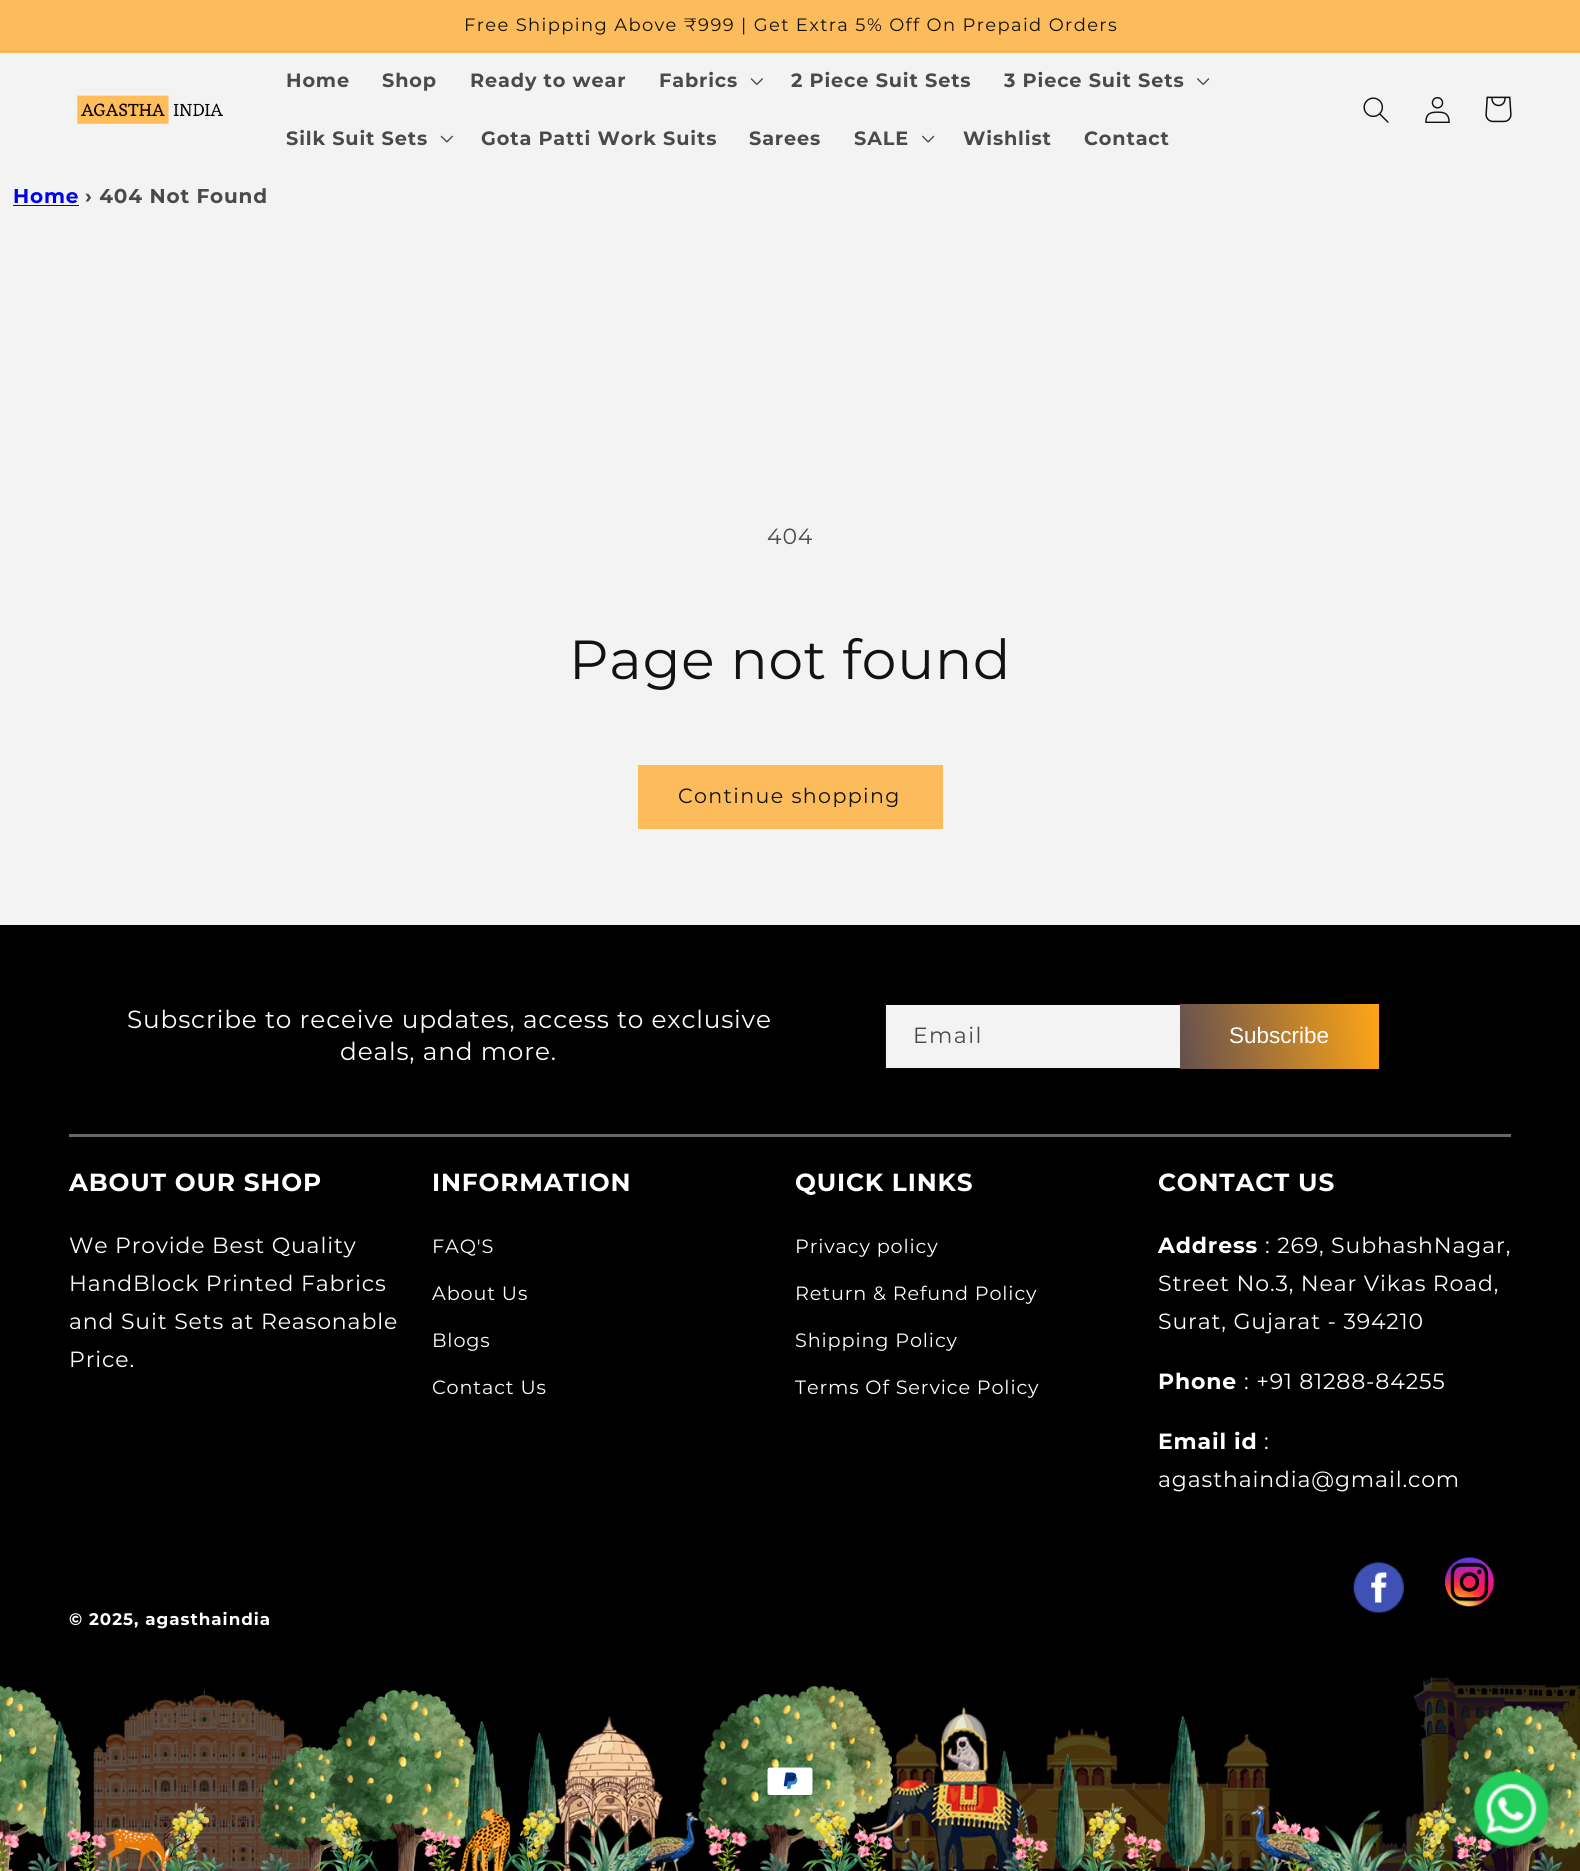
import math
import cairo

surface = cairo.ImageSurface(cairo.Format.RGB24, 1580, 1871)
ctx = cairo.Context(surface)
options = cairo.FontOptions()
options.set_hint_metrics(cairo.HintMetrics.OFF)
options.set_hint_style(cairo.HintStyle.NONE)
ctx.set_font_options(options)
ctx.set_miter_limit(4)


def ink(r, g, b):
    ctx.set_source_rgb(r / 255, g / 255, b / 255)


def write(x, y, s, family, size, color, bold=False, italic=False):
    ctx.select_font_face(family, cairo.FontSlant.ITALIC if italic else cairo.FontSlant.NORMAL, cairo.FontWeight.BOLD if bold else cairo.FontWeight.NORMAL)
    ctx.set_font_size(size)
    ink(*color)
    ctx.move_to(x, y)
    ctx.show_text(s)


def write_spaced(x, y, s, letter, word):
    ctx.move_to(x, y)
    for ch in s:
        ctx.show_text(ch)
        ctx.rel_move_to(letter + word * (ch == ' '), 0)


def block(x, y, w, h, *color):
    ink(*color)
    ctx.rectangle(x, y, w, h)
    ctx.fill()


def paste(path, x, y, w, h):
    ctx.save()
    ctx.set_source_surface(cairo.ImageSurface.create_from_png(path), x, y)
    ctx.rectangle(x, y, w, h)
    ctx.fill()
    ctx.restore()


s1 = dict(family="Liberation Sans", size=22.5, color=(255, 255, 255))

ink(243, 243, 243)
ctx.paint()
block(0, 0, 1580, 53, 252, 188, 91)
block(0, 51, 1580, 1, 233, 174, 85)
ctx.select_font_face("Montserrat")
ctx.set_font_size(17.9)
ink(18, 18, 18)
write_spaced(464, 31, "Free Shipping Above ₹999 | Get Extra 5% Off On Prepaid Orders", 1.38, 0)
paste("pic1.png", 77, 95, 146, 29)
ctx.select_font_face("Montserrat", cairo.FontSlant.NORMAL, cairo.FontWeight.BOLD)
ctx.set_font_size(19.25)
ink(74, 74, 74)
write_spaced(286, 87, "Home", 0.85, 0)
write_spaced(382, 87, "Shop", 0.85, 0)
write_spaced(470, 87, "Ready to wear", 0.85, 0)
write_spaced(659, 87, "Fabrics", 0.85, 0)
paste("pic2.png", 750, 78, 13, 7)
write_spaced(791, 87, "2 Piece Suit Sets", 0.85, 0)
write_spaced(1004, 87, "3 Piece Suit Sets", 0.85, 0)
paste("pic3.png", 1197, 78, 13, 7)
write_spaced(286, 145, "Silk Suit Sets", 0.85, 0)
paste("pic4.png", 440, 135, 13, 8)
write_spaced(481, 145, "Gota Patti Work Suits", 0.85, 0)
write_spaced(749, 145, "Sarees", 0.85, 0)
write_spaced(854, 145, "SALE", 0.85, 0)
paste("pic5.png", 922, 135, 13, 8)
write_spaced(963, 145, "Wishlist", 0.85, 0)
write_spaced(1084, 145, "Contact", 0.85, 0)
paste("pic6.png", 1363, 97, 26, 26)
paste("pic7.png", 1425, 97, 25, 26)
paste("pic8.png", 1485, 96, 27, 27)
ctx.set_font_size(20)
ink(0, 0, 238)
write_spaced(13, 203, "Home", 0.85, 0)
block(13, 205, 66, 1, 0, 0, 238)
ink(74, 74, 74)
write_spaced(85, 203, "› 404 Not Found", 0.85, 0)
ctx.select_font_face("Montserrat")
ctx.set_font_size(22)
write_spaced(767, 544, "404", 0.85, 0)
ctx.set_font_size(55)
ink(18, 18, 18)
write_spaced(569, 679, "Page not found", 0.85, 0)
block(638, 765, 305, 64, 252, 188, 91)
ctx.set_font_size(20.6)
ink(18, 18, 18)
write_spaced(678, 803, "Continue shopping", 1.38, 0)
block(0, 925, 1580, 946, 0, 0, 0)
paste("pic9.png", 0, 1677, 1580, 194)
block(69, 1134, 1442, 3, 104, 103, 103)
ctx.set_font_size(24.75)
ink(255, 255, 255)
write_spaced(127, 1028, "Subscribe to receive updates, access to exclusive", 0.85, 0)
write_spaced(340, 1060, "deals, and more.", 0.85, 0)
block(886, 1005, 294, 63, 243, 243, 243)
ctx.rectangle(885.5, 1004.5, 494, 64)
ink(10, 10, 10)
ctx.set_line_width(1)
ctx.stroke()
ctx.set_font_size(22)
ink(74, 74, 74)
write_spaced(913, 1043, "Email", 1.38, 0)
gradient = cairo.LinearGradient(1177, 1052, 1381, 1020)
gradient.add_color_stop_rgba(0, 0.392, 0.31, 0.31, 1)
gradient.add_color_stop_rgba(1, 1, 0.651, 0.086, 1)
ctx.set_source(gradient)
ctx.rectangle(1180, 1004, 199, 65)
ctx.fill()
write(1229, 1043, "Subscribe", **s1)
ctx.select_font_face("Montserrat", cairo.FontSlant.NORMAL, cairo.FontWeight.BOLD)
ctx.set_font_size(24.75)
write_spaced(69, 1191, "ABOUT OUR SHOP", 0.85, 0)
ctx.select_font_face("Montserrat")
ctx.set_font_size(22)
write_spaced(69, 1253, "We Provide Best Quality", 0.85, 0)
write_spaced(69, 1291, "HandBlock Printed Fabrics", 0.85, 0)
write_spaced(69, 1329, "and Suit Sets at Reasonable", 0.85, 0)
write_spaced(69, 1367, "Price.", 0.85, 0)
ctx.select_font_face("Montserrat", cairo.FontSlant.NORMAL, cairo.FontWeight.BOLD)
ctx.set_font_size(24.75)
write_spaced(432, 1191, "INFORMATION", 0.85, 0)
ctx.select_font_face("Montserrat")
ctx.set_font_size(19.25)
write_spaced(432, 1253, "FAQ'S", 0.85, 0)
write_spaced(432, 1300, "About Us", 0.85, 0)
write_spaced(432, 1347, "Blogs", 0.85, 0)
write_spaced(432, 1394, "Contact Us", 0.85, 0)
ctx.select_font_face("Montserrat", cairo.FontSlant.NORMAL, cairo.FontWeight.BOLD)
ctx.set_font_size(24.75)
write_spaced(795, 1191, "QUICK LINKS", 0.85, 0)
ctx.select_font_face("Montserrat")
ctx.set_font_size(19.25)
write_spaced(795, 1253, "Privacy policy", 0.85, 0)
write_spaced(795, 1300, "Return & Refund Policy", 0.85, 0)
write_spaced(795, 1347, "Shipping Policy", 0.85, 0)
write_spaced(795, 1394, "Terms Of Service Policy", 0.85, 0)
ctx.select_font_face("Montserrat", cairo.FontSlant.NORMAL, cairo.FontWeight.BOLD)
ctx.set_font_size(24.75)
write_spaced(1158, 1191, "CONTACT US", 0.85, 0)
ctx.set_font_size(22)
write_spaced(1158, 1253, "Address", 0.85, 0)
ctx.select_font_face("Montserrat")
write_spaced(1265, 1253, ": 269, SubhashNagar,", 0.85, 0)
write_spaced(1158, 1291, "Street No.3, Near Vikas Road,", 0.85, 0)
write_spaced(1158, 1329, "Surat, Gujarat - 394210", 0.85, 0)
ctx.select_font_face("Montserrat", cairo.FontSlant.NORMAL, cairo.FontWeight.BOLD)
write_spaced(1158, 1389, "Phone", 0.85, 0)
ctx.select_font_face("Montserrat")
write_spaced(1244, 1389, ": +91 81288-84255", 0.85, 0)
ctx.select_font_face("Montserrat", cairo.FontSlant.NORMAL, cairo.FontWeight.BOLD)
write_spaced(1158, 1449, "Email id", 0.85, 0)
ctx.select_font_face("Montserrat")
write_spaced(1264, 1449, ":", 0.85, 0)
write_spaced(1158, 1487, "agasthaindia@gmail.com", 0.85, 0)
paste("pic10.png", 1353, 1562, 51, 51)
paste("pic11.png", 1445, 1557, 49, 50)
ctx.select_font_face("Montserrat", cairo.FontSlant.NORMAL, cairo.FontWeight.BOLD)
ctx.set_font_size(16.75)
write_spaced(69, 1625, "© 2025, agasthaindia", 1, 0)
paste("pic12.png", 766, 1766, 48, 30)
paste("pic13.png", 1473, 1771, 77, 76)
surface.write_to_png("screenshot.png")
